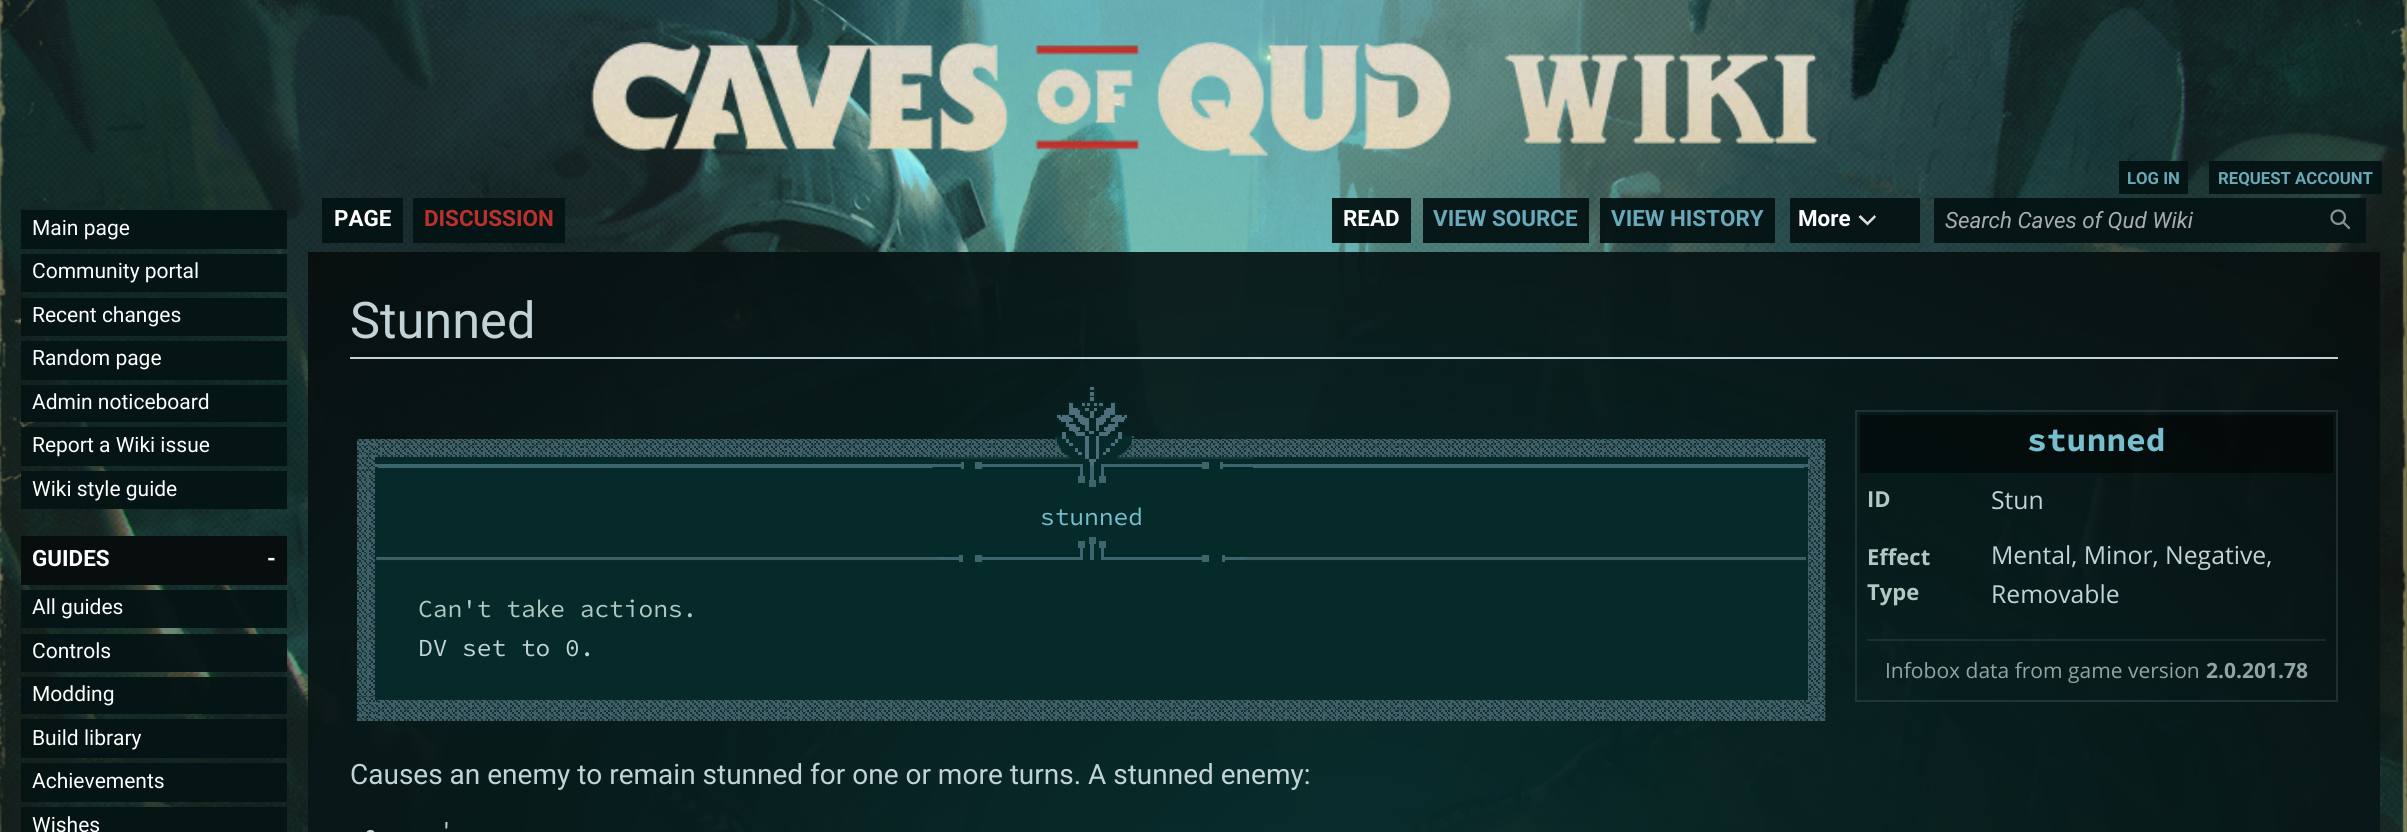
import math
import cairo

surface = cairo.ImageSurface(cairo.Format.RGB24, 2407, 832)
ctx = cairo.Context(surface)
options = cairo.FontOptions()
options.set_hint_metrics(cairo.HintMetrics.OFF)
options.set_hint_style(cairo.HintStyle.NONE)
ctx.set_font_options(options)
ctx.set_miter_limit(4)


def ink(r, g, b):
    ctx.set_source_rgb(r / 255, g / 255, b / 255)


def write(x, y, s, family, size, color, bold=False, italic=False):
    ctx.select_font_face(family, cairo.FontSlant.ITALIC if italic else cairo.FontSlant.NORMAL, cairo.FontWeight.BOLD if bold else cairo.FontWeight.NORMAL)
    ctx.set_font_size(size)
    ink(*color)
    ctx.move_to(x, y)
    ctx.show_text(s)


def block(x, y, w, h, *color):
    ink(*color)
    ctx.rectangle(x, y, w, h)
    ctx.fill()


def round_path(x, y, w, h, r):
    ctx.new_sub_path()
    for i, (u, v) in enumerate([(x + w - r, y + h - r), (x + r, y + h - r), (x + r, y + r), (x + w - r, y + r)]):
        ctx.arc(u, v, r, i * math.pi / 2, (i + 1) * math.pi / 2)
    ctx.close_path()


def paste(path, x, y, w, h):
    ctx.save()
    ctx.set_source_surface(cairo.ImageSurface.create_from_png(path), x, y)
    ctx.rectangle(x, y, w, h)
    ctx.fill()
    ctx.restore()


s1 = dict(family="Roboto", size=16.75, color=(105, 169, 185), bold=True)
s2 = dict(family="Roboto", size=22.4, color=(255, 255, 255), bold=True)
s3 = dict(family="Roboto", size=22.4, color=(187, 49, 44), bold=True)
s4 = dict(family="Roboto", size=22.4, color=(105, 169, 185), bold=True)
s5 = dict(family="Roboto", size=22.4, color=(168, 173, 173), italic=True)
s6 = dict(family="Roboto", size=21, color=(255, 255, 255))
s7 = dict(family="Roboto", size=50.5, color=(193, 211, 214))
s8 = dict(family="Source Code Pro", size=24.5, color=(119, 191, 207))
s9 = dict(family="Source Code Pro", size=24.5, color=(177, 201, 195))
s10 = dict(family="Source Code Pro", size=24.5, color=(193, 211, 214))
s11 = dict(family="Source Code Pro", size=33, color=(119, 191, 207), bold=True)
s12 = dict(family="Open Sans", size=22, color=(177, 201, 195), bold=True)
s13 = dict(family="Open Sans", size=24.75, color=(193, 211, 214))
s14 = dict(family="Open Sans", size=21, color=(143, 166, 162))
s15 = dict(family="Open Sans", size=21, color=(143, 166, 162), bold=True)
s16 = dict(family="Roboto", size=28, color=(193, 211, 214))

ink(255, 255, 255)
ctx.paint()
paste("pic1.png", 0, 0, 2407, 832)
ctx.set_source_rgba(0.02, 0.078, 0.078, 0.95)
ctx.rectangle(2119, 161, 69, 33)
ctx.fill()
write(2127, 184, "LOG IN", **s1)
ctx.set_source_rgba(0.02, 0.078, 0.078, 0.95)
ctx.rectangle(2209, 161, 173, 33)
ctx.fill()
write(2218, 184, "REQUEST ACCOUNT", **s1)
ctx.set_source_rgba(0.02, 0.078, 0.078, 0.95)
ctx.rectangle(322, 198, 81, 45)
ctx.fill()
write(334, 226, "PAGE", **s2)
ctx.set_source_rgba(0.02, 0.078, 0.078, 0.95)
ctx.rectangle(413, 198, 152, 45)
ctx.fill()
write(424, 226, "DISCUSSION", **s3)
ctx.set_source_rgba(0.02, 0.078, 0.078, 0.95)
ctx.rectangle(1332, 198, 79, 45)
ctx.fill()
write(1343, 226, "READ", **s2)
ctx.set_source_rgba(0.02, 0.078, 0.078, 0.95)
ctx.rectangle(1423, 198, 166, 45)
ctx.fill()
write(1433, 226, "VIEW SOURCE", **s4)
ctx.set_source_rgba(0.02, 0.078, 0.078, 0.95)
ctx.rectangle(1600, 198, 175, 45)
ctx.fill()
write(1611, 226, "VIEW HISTORY", **s4)
ctx.set_source_rgba(0.02, 0.078, 0.078, 0.95)
ctx.rectangle(1790, 198, 130, 45)
ctx.fill()
write(1798, 226, "More", **s2)
ink(223, 222, 221)
ctx.new_path()
ctx.move_to(1876, 217)
ctx.line_to(1874.5, 215)
ctx.line_to(1867.5, 222)
ctx.line_to(1860.5, 215)
ctx.line_to(1858.5, 217)
ctx.line_to(1867.5, 225.5)
ctx.close_path()
ctx.fill()
ctx.set_source_rgba(0.02, 0.078, 0.078, 0.95)
ctx.rectangle(1934, 198, 432, 45)
ctx.fill()
write(1945, 228, "Search Caves of Qud Wiki", **s5)
paste("pic2.png", 2330, 209, 20, 21)
paste("pic3.png", 591, 42, 1226, 114)
ctx.set_source_rgba(0.02, 0.078, 0.078, 0.95)
ctx.rectangle(21, 210, 266, 39)
ctx.fill()
write(32, 235, "Main page", **s6)
ctx.set_source_rgba(0.02, 0.078, 0.078, 0.95)
ctx.rectangle(21, 254, 266, 38)
ctx.fill()
write(32, 278, "Community portal", **s6)
ctx.set_source_rgba(0.02, 0.078, 0.078, 0.95)
ctx.rectangle(21, 298, 266, 38)
ctx.fill()
write(32, 322, "Recent changes", **s6)
ctx.set_source_rgba(0.02, 0.078, 0.078, 0.95)
ctx.rectangle(21, 341, 266, 39)
ctx.fill()
write(32, 365, "Random page", **s6)
ctx.set_source_rgba(0.02, 0.078, 0.078, 0.95)
ctx.rectangle(21, 385, 266, 37)
ctx.fill()
write(32, 409, "Admin noticeboard", **s6)
ctx.set_source_rgba(0.02, 0.078, 0.078, 0.95)
ctx.rectangle(21, 427, 266, 39)
ctx.fill()
write(32, 452, "Report a Wiki issue", **s6)
ctx.set_source_rgba(0.02, 0.078, 0.078, 0.95)
ctx.rectangle(21, 471, 266, 38)
ctx.fill()
write(32, 496, "Wiki style guide", **s6)
block(21, 536, 266, 49, 8, 14, 14)
write(32, 566, "GUIDES", **s2)
write(267, 566, "-", **s2)
ctx.set_source_rgba(0.02, 0.078, 0.078, 0.95)
ctx.rectangle(21, 590, 266, 38)
ctx.fill()
write(32, 614, "All guides", **s6)
ctx.set_source_rgba(0.02, 0.078, 0.078, 0.95)
ctx.rectangle(21, 634, 266, 38)
ctx.fill()
write(32, 658, "Controls", **s6)
ctx.set_source_rgba(0.02, 0.078, 0.078, 0.95)
ctx.rectangle(21, 677, 266, 37)
ctx.fill()
write(32, 701, "Modding", **s6)
ctx.set_source_rgba(0.02, 0.078, 0.078, 0.95)
ctx.rectangle(21, 719, 266, 39)
ctx.fill()
write(32, 745, "Build library", **s6)
ctx.set_source_rgba(0.02, 0.078, 0.078, 0.95)
ctx.rectangle(21, 763, 266, 39)
ctx.fill()
write(32, 788, "Achievements", **s6)
ctx.set_source_rgba(0.02, 0.078, 0.078, 0.95)
ctx.rectangle(21, 807, 266, 25)
ctx.fill()
write(32, 832, "Wishes", **s6)
block(350, 357, 1988, 2, 193, 211, 214)
write(350, 338, "Stunned", **s7)
paste("pic4.png", 357, 439, 1469, 282)
paste("pic5.png", 932, 386, 321, 101)
write(1040, 525, "stunned", **s8)
paste("pic6.png", 376, 557, 1430, 6)
paste("pic7.png", 938, 537, 308, 25)
write(418, 617, "Can't take actions.", **s9)
write(418, 656, "DV set to 0.", **s10)
ctx.rectangle(1856, 411, 481, 290)
ctx.set_source_rgba(0.302, 0.431, 0.478, 0.3)
ctx.stroke()
ctx.set_source_rgba(0, 0, 0, 0.5)
ctx.rectangle(1860, 415, 473, 58)
ctx.fill()
write(2027, 451, "stunned", **s11)
write(1867, 507, "ID", **s12)
write(1991, 509, "Stun", **s13)
write(1867, 565, "Effect", **s12)
write(1867, 600, "Type", **s12)
write(1991, 564, "Mental, Minor, Negative,", **s13)
write(1991, 603, "Removable", **s13)
ctx.set_source_rgba(0.302, 0.431, 0.478, 0.24)
ctx.rectangle(1867, 639, 459, 2)
ctx.fill()
write(1885, 678, "Infobox data from game version", **s14)
write(2206, 678, "2.0.201.78", **s15)
write(350, 784, "Causes an enemy to remain stunned for one or more turns. A stunned enemy:", **s16)
write(444, 843, "'", **s16)
round_path(366, 830, 9, 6, 4)
ctx.fill()
surface.write_to_png("screenshot.png")
